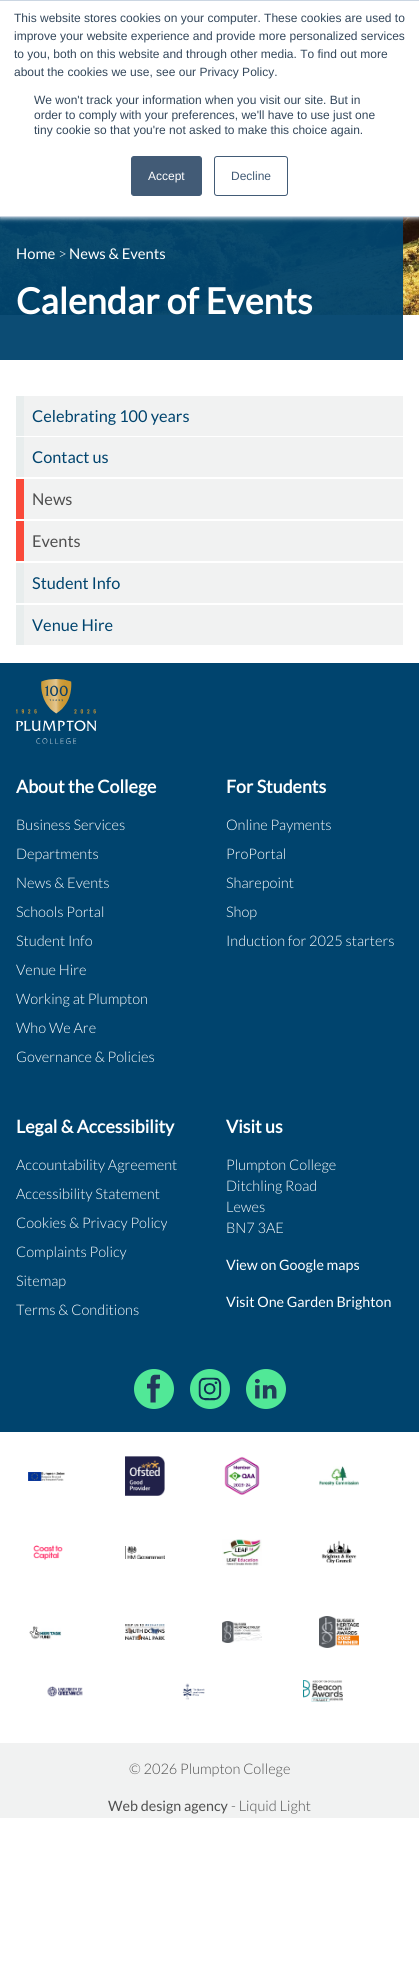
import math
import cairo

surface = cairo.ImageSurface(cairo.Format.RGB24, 419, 1987)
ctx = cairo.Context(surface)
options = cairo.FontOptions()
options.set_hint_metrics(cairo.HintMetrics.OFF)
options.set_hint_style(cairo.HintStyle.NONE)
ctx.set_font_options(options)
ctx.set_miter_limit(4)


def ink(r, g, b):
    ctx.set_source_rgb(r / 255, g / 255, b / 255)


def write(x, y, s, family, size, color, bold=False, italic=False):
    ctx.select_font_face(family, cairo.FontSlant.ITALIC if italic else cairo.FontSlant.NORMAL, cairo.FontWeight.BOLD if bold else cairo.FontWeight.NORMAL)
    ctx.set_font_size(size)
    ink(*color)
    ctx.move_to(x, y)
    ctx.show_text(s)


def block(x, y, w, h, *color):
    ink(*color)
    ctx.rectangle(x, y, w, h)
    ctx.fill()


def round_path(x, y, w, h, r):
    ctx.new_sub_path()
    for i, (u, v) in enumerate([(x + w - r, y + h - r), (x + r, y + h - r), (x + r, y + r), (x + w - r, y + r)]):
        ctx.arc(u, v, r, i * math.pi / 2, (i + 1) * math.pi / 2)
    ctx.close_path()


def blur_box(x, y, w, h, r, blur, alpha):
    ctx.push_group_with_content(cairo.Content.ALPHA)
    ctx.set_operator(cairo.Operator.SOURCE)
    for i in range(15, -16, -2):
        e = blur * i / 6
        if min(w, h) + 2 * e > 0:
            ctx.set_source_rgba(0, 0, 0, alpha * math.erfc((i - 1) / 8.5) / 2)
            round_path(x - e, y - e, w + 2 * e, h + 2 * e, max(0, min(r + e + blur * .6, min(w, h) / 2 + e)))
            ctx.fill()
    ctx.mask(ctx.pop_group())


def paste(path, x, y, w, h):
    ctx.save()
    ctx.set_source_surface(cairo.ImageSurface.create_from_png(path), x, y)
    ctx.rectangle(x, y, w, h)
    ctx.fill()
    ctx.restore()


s1 = dict(family="Liberation Sans", size=12, color=(51, 71, 91))
s2 = dict(family="Liberation Sans", size=12, color=(255, 255, 255))
s3 = dict(family="Liberation Sans", size=12, color=(66, 91, 118))
s4 = dict(family="Lato", size=14.5, color=(255, 255, 255))
s5 = dict(family="Lato Light", size=14.5, color=(255, 255, 255))
s6 = dict(family="Lato", size=35.25, color=(255, 255, 255), bold=True)
s7 = dict(family="Lato", size=16, color=(0, 68, 110))
s8 = dict(family="Lato", size=16, color=(79, 79, 79))
s9 = dict(family="Lato", size=17.5, color=(255, 255, 255), bold=True)
s10 = dict(family="Lato Light", size=14, color=(255, 255, 255))
s11 = dict(family="Lato", size=14, color=(255, 255, 255))
s12 = dict(family="Lato Light", size=14, color=(79, 79, 79))
s13 = dict(family="Lato", size=14, color=(79, 79, 79))

ink(255, 255, 255)
ctx.paint()
paste("pic1.png", 0, 217, 419, 98)
ctx.set_source_rgba(0, 0.267, 0.431, 0.95)
ctx.rectangle(0, 217, 403, 143)
ctx.fill()
ink(234, 240, 246)
blur_box(0, 1, 419, 217, 0, 2.5, 1)
block(0, 1, 419, 215, 255, 255, 255)
block(0, 0, 419, 1, 203, 214, 226)
block(0, 216, 419, 1, 203, 214, 226)
write(14, 22, "This website stores cookies on your computer. These cookies are used to", **s1)
write(14, 40, "improve your website experience and provide more personalized services", **s1)
write(14, 58, "to you, both on this website and through other media. To find out more", **s1)
write(14, 76, "about the cookies we use, see our Privacy Policy.", **s1)
write(34, 104, "We won't track your information when you visit our site. But in", **s1)
write(34, 119, "order to comply with your preferences, we'll have to use just one", **s1)
write(34, 134, "tiny cookie so that you're not asked to make this choice again.", **s1)
ink(66, 91, 118)
round_path(131.5, 156.5, 70, 39, 2.5)
ctx.fill_preserve()
ctx.set_line_width(1)
ctx.stroke()
write(148, 180, "Accept", **s2)
round_path(214.5, 156.5, 73, 39, 2.5)
ink(66, 91, 118)
ctx.stroke()
write(231, 180, "Decline", **s3)
write(16, 259, "Home", **s4)
write(58, 259, ">", **s5)
write(69, 259, "News & Events", **s4)
write(16, 314, "Calendar of Events", **s6)
block(24, 396, 379, 40, 241, 242, 242)
block(16, 396, 8, 40, 232, 237, 237)
write(32, 422, "Celebrating 100 years", **s7)
block(24, 437, 379, 40, 241, 242, 242)
block(16, 437, 8, 40, 232, 237, 237)
write(32, 463, "Contact us", **s7)
block(24, 479, 379, 40, 241, 242, 242)
block(16, 479, 8, 40, 250, 74, 58)
write(32, 505, "News", **s8)
block(24, 521, 379, 40, 241, 242, 242)
block(16, 521, 8, 40, 250, 74, 58)
write(32, 547, "Events", **s8)
block(24, 563, 379, 40, 241, 242, 242)
block(16, 563, 8, 40, 232, 237, 237)
write(32, 589, "Student Info", **s7)
block(24, 605, 379, 40, 241, 242, 242)
block(16, 605, 8, 40, 232, 237, 237)
write(32, 631, "Venue Hire", **s7)
block(0, 663, 419, 769, 0, 68, 110)
paste("pic2.png", 16, 679, 81, 65)
write(16, 793, "About the College", **s9)
write(16, 830, "Business Services", **s10)
write(16, 859, "Departments", **s10)
write(16, 888, "News & Events", **s10)
write(16, 917, "Schools Portal", **s10)
write(16, 946, "Student Info", **s10)
write(16, 975, "Venue Hire", **s10)
write(16, 1004, "Working at Plumpton", **s10)
write(16, 1033, "Who We Are", **s10)
write(16, 1062, "Governance & Policies", **s10)
write(226, 793, "For Students", **s9)
write(226, 830, "Online Payments", **s10)
write(226, 859, "ProPortal", **s10)
write(226, 888, "Sharepoint", **s10)
write(226, 917, "Shop", **s10)
write(226, 946, "Induction for 2025 starters", **s10)
write(16, 1133, "Legal & Accessibility", **s9)
write(16, 1170, "Accountability Agreement", **s10)
write(16, 1199, "Accessibility Statement", **s10)
write(16, 1228, "Cookies & Privacy Policy", **s10)
write(16, 1257, "Complaints Policy", **s10)
write(16, 1286, "Sitemap", **s10)
write(16, 1315, "Terms & Conditions", **s10)
write(226, 1133, "Visit us", **s9)
write(226, 1170, "Plumpton College", **s10)
write(226, 1191, "Ditchling Road", **s10)
write(226, 1212, "Lewes", **s10)
write(226, 1233, "BN7 3AE", **s10)
write(226, 1270, "View on Google maps", **s11)
write(226, 1307, "Visit One Garden Brighton", **s11)
ink(81, 232, 151)
ctx.new_path()
ctx.arc(154, 1389, 20, 0, 2 * math.pi)
ctx.fill()
paste("pic3.png", 147, 1374, 13, 29)
ctx.arc(210, 1389, 20, 0, 2 * math.pi)
ctx.fill()
paste("pic4.png", 198, 1377, 24, 24)
ctx.arc(266, 1389, 20, 0, 2 * math.pi)
ctx.fill()
paste("pic5.png", 255, 1378, 22, 21)
paste("pic6.png", 28, 1472, 37, 9)
paste("pic7.png", 125, 1456, 40, 40)
paste("pic8.png", 224, 1456, 36, 39)
paste("pic9.png", 319, 1466, 40, 20)
paste("pic10.png", 33, 1545, 30, 15)
paste("pic11.png", 125, 1546, 40, 13)
paste("pic12.png", 222, 1539, 40, 27)
paste("pic13.png", 321, 1540, 36, 24)
paste("pic14.png", 29, 1626, 33, 14)
paste("pic15.png", 125, 1624, 40, 16)
paste("pic16.png", 222, 1621, 40, 22)
paste("pic17.png", 319, 1616, 40, 32)
paste("pic18.png", 47, 1686, 36, 11)
paste("pic19.png", 182, 1683, 23, 17)
paste("pic20.png", 303, 1680, 40, 22)
block(0, 1743, 419, 75, 241, 242, 242)
write(129, 1774, "© 2026 Plumpton College", **s12)
write(108, 1811, "Web design agency", **s13)
write(231, 1811, "- Liquid Light", **s12)
surface.write_to_png("screenshot.png")
